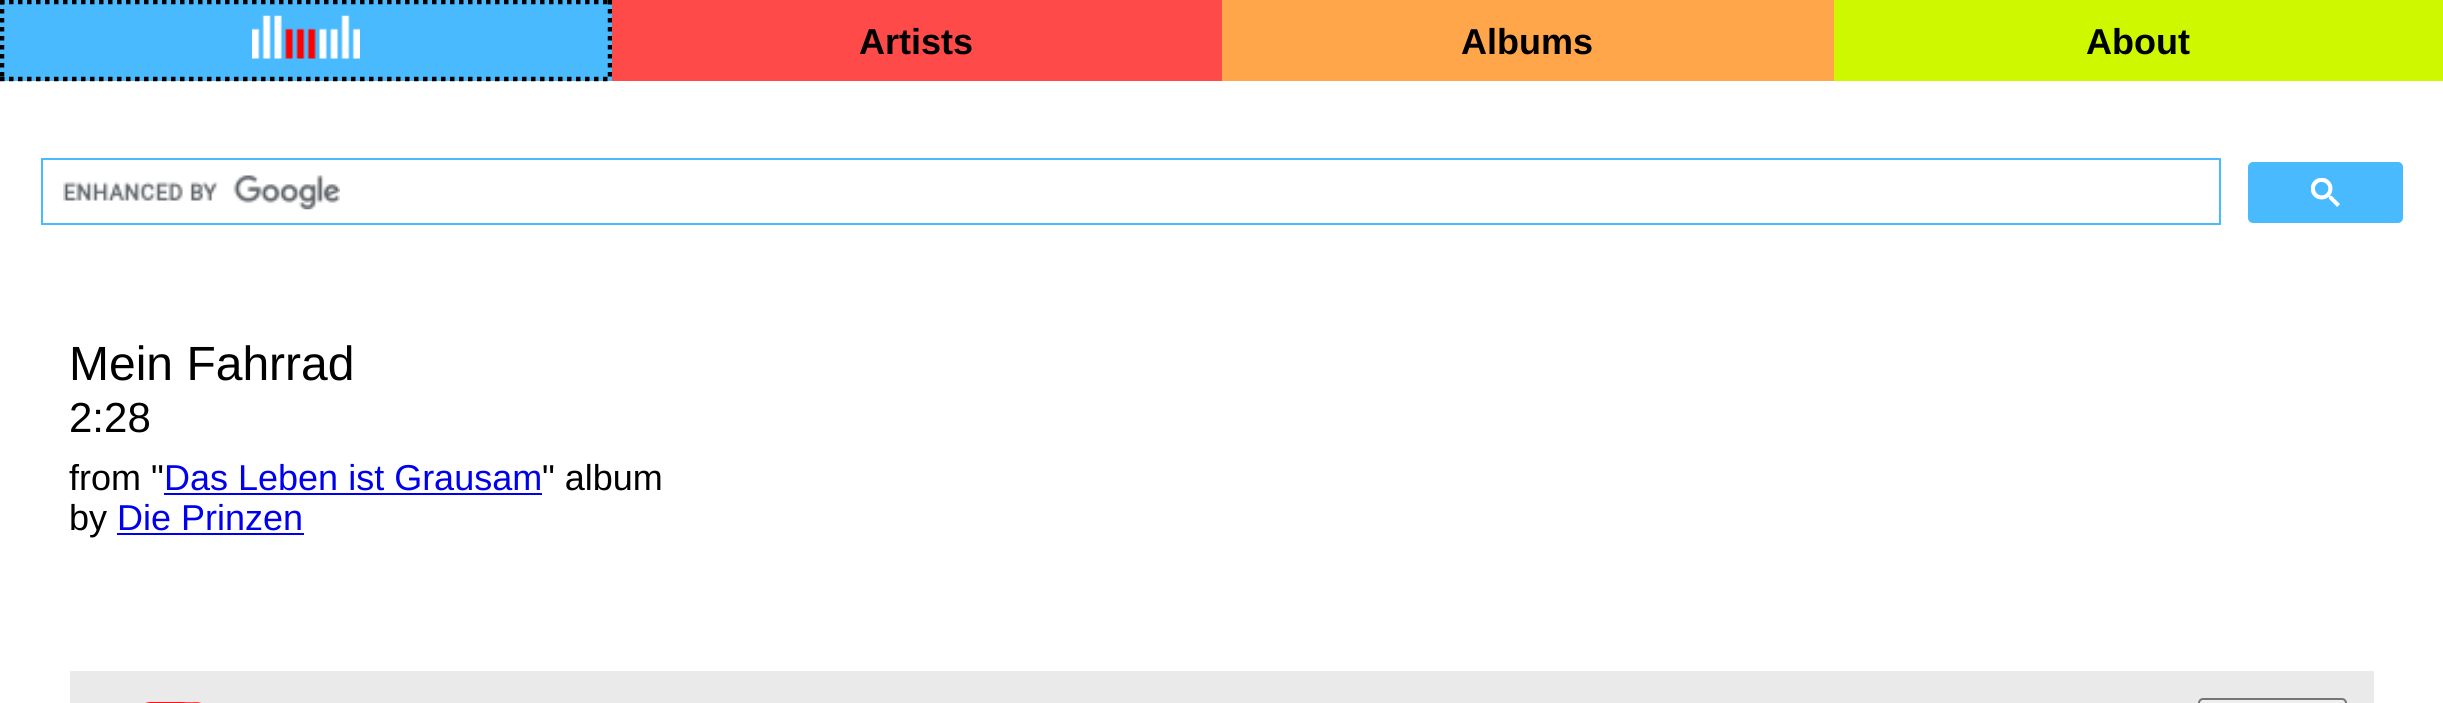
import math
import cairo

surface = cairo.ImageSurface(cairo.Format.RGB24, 2443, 703)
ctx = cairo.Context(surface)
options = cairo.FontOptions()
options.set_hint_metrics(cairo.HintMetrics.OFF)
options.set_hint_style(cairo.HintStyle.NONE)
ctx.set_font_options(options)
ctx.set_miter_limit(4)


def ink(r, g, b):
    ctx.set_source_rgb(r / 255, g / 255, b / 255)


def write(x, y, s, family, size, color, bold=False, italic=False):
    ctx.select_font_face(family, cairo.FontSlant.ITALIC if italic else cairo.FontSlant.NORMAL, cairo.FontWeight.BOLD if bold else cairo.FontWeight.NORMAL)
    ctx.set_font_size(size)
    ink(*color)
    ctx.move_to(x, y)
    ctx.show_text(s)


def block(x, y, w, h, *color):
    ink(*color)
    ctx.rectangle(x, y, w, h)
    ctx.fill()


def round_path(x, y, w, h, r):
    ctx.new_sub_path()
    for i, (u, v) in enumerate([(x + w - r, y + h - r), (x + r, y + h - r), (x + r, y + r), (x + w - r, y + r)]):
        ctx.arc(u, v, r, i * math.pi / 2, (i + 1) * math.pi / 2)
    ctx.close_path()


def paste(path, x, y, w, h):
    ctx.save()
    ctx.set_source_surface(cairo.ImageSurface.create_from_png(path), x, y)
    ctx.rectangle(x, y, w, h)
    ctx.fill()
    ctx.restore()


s1 = dict(family="Liberation Sans", size=36, color=(0, 0, 0), bold=True)
s2 = dict(family="Liberation Sans", size=48, color=(0, 0, 0))
s3 = dict(family="Liberation Sans", size=42, color=(0, 0, 0))
s4 = dict(family="Liberation Sans", size=36, color=(0, 0, 0))
s5 = dict(family="Liberation Sans", size=36, color=(0, 0, 238))

ink(255, 255, 255)
ctx.paint()
block(0, 0, 612, 81, 74, 186, 255)
ctx.new_path()
ctx.move_to(0, 2)
ctx.line_to(612, 2)
ink(0, 0, 0)
ctx.set_line_width(4.5)
ctx.set_dash([4.5, 4.5])
ctx.stroke()
ctx.new_path()
ctx.move_to(610, 0)
ctx.line_to(610, 81)
ctx.stroke()
ctx.new_path()
ctx.move_to(0, 79)
ctx.line_to(612, 79)
ctx.stroke()
ctx.new_path()
ctx.move_to(2, 0)
ctx.line_to(2, 81)
ctx.stroke()
paste("pic1.png", 252, 15, 108, 44)
block(612, 0, 610, 81, 255, 74, 74)
write(859, 54, "Artists", **s1)
block(1222, 0, 612, 81, 255, 165, 74)
write(1461, 54, "Albums", **s1)
block(1834, 0, 609, 81, 206, 248, 0)
write(2086, 54, "About", **s1)
ctx.rectangle(42, 159, 2178, 65)
ink(74, 186, 255)
ctx.set_line_width(2)
ctx.set_dash([])
ctx.stroke()
paste("pic2.png", 63, 175, 277, 35)
round_path(2249, 163, 153, 59, 4)
ctx.fill_preserve()
ctx.stroke()
paste("pic3.png", 2311, 178, 29, 29)
write(69, 380, "Mein Fahrrad", **s2)
write(69, 432, "2:28", **s3)
write(69, 490, "from \"", **s4)
write(164, 490, "Das Leben ist Grausam", **s5)
block(164, 493, 378, 2, 0, 0, 238)
write(542, 490, "\" album", **s4)
write(69, 530, "by", **s4)
write(117, 530, "Die Prinzen", **s5)
block(117, 533, 187, 2, 0, 0, 238)
block(70, 671, 2304, 32, 234, 234, 234)
paste("pic4.png", 145, 702, 56, 1)
ink(239, 239, 239)
round_path(2199, 699, 147, 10, 4)
ctx.fill_preserve()
ink(118, 118, 118)
ctx.stroke()
surface.write_to_png("screenshot.png")
